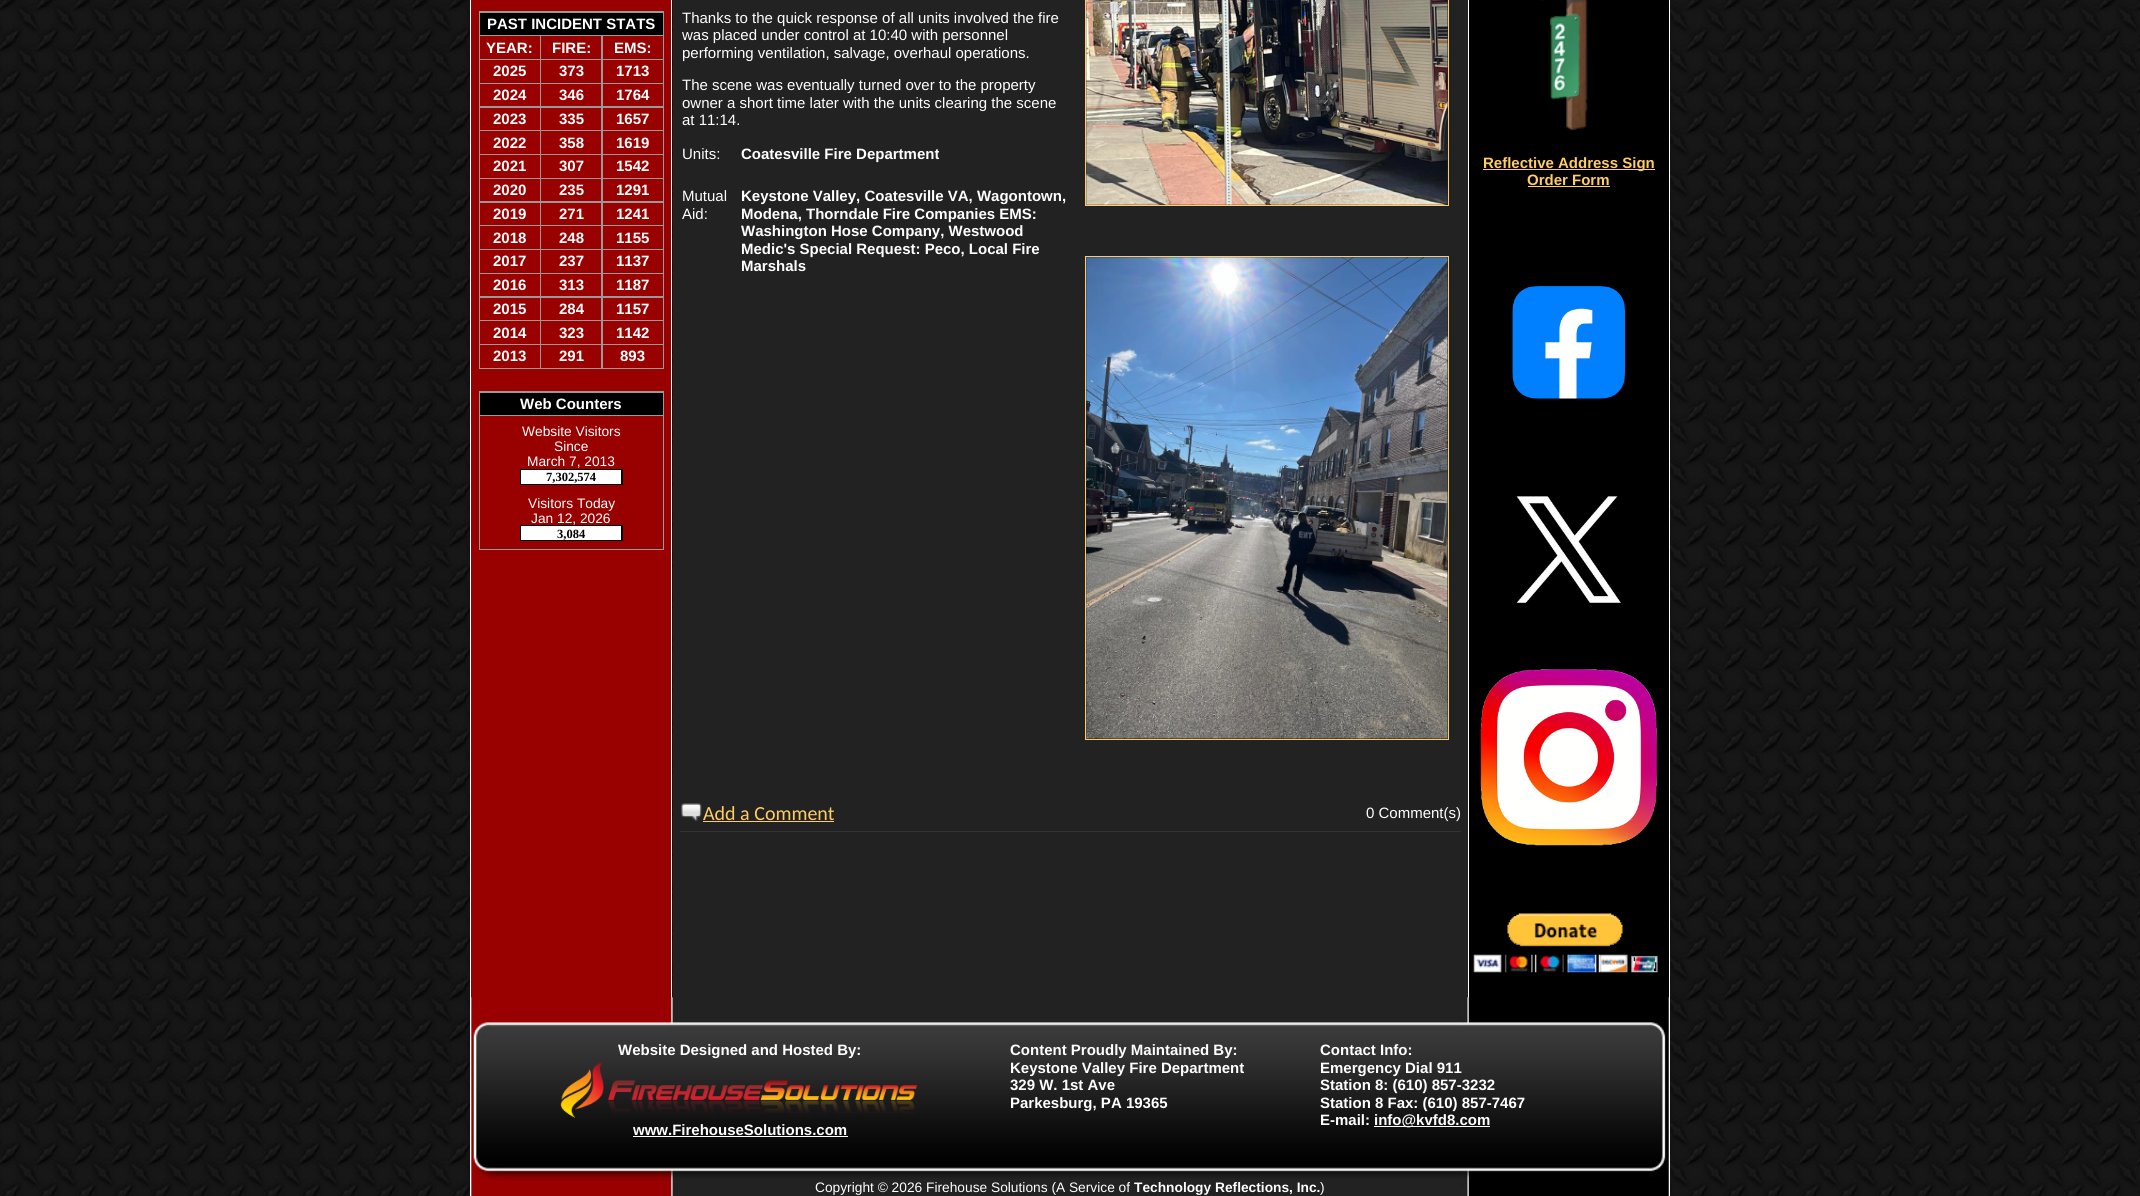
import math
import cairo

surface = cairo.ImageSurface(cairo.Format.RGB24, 2140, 1196)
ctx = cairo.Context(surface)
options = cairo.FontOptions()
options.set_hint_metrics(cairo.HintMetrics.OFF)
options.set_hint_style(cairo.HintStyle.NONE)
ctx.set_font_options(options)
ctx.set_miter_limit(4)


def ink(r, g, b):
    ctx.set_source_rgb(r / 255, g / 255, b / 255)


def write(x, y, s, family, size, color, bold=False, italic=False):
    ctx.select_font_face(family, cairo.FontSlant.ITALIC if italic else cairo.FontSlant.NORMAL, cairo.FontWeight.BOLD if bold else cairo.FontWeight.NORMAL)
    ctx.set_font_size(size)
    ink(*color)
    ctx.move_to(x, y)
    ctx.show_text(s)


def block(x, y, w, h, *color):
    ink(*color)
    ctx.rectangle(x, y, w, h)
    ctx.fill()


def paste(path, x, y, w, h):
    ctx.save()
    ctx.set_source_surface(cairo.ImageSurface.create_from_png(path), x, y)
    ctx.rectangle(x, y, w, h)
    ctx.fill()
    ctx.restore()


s1 = dict(family="Liberation Sans", size=15, color=(255, 255, 255), bold=True)
s2 = dict(family="Liberation Sans", size=13.75, color=(255, 255, 255))
s3 = dict(family="Liberation Serif", size=12.5, color=(0, 0, 0), bold=True)
s4 = dict(family="Liberation Sans", size=15, color=(255, 255, 255))
s5 = dict(family="Carlito", size=20, color=(255, 204, 102))
s6 = dict(family="Liberation Sans", size=15, color=(255, 204, 102), bold=True)
s7 = dict(family="Liberation Sans", size=13.75, color=(255, 255, 255), bold=True)

ink(255, 255, 255)
ctx.paint()
paste("pic1.png", 0, 0, 2140, 1196)
block(470, 0, 1, 998, 255, 255, 255)
block(471, 0, 200, 998, 153, 0, 0)
block(479, 11, 185, 358, 153, 153, 153)
block(480, 13, 183, 22, 0, 0, 0)
write(487, 29, "PAST INCIDENT STATS", **s1)
block(480, 36, 60, 23, 153, 0, 0)
write(486, 53, "YEAR:", **s1)
block(541, 36, 60, 23, 153, 0, 0)
write(552, 53, "FIRE:", **s1)
block(603, 36, 60, 23, 153, 0, 0)
write(614, 53, "EMS:", **s1)
block(480, 60, 60, 23, 153, 0, 0)
write(493, 76, "2025", **s1)
block(541, 60, 60, 23, 153, 0, 0)
write(559, 76, "373", **s1)
block(603, 60, 60, 23, 153, 0, 0)
write(616, 76, "1713", **s1)
block(480, 84, 60, 22, 153, 0, 0)
write(493, 100, "2024", **s1)
block(541, 84, 60, 22, 153, 0, 0)
write(559, 100, "346", **s1)
block(603, 84, 60, 22, 153, 0, 0)
write(616, 100, "1764", **s1)
block(480, 108, 60, 22, 153, 0, 0)
write(493, 124, "2023", **s1)
block(541, 108, 60, 22, 153, 0, 0)
write(559, 124, "335", **s1)
block(603, 108, 60, 22, 153, 0, 0)
write(616, 124, "1657", **s1)
block(480, 131, 60, 23, 153, 0, 0)
write(493, 148, "2022", **s1)
block(541, 131, 60, 23, 153, 0, 0)
write(559, 148, "358", **s1)
block(603, 131, 60, 23, 153, 0, 0)
write(616, 148, "1619", **s1)
block(480, 155, 60, 23, 153, 0, 0)
write(493, 171, "2021", **s1)
block(541, 155, 60, 23, 153, 0, 0)
write(559, 171, "307", **s1)
block(603, 155, 60, 23, 153, 0, 0)
write(616, 171, "1542", **s1)
block(480, 179, 60, 22, 153, 0, 0)
write(493, 195, "2020", **s1)
block(541, 179, 60, 22, 153, 0, 0)
write(559, 195, "235", **s1)
block(603, 179, 60, 22, 153, 0, 0)
write(616, 195, "1291", **s1)
block(480, 203, 60, 22, 153, 0, 0)
write(493, 219, "2019", **s1)
block(541, 203, 60, 22, 153, 0, 0)
write(559, 219, "271", **s1)
block(603, 203, 60, 22, 153, 0, 0)
write(616, 219, "1241", **s1)
block(480, 226, 60, 23, 153, 0, 0)
write(493, 243, "2018", **s1)
block(541, 226, 60, 23, 153, 0, 0)
write(559, 243, "248", **s1)
block(603, 226, 60, 23, 153, 0, 0)
write(616, 243, "1155", **s1)
block(480, 250, 60, 23, 153, 0, 0)
write(493, 266, "2017", **s1)
block(541, 250, 60, 23, 153, 0, 0)
write(559, 266, "237", **s1)
block(603, 250, 60, 23, 153, 0, 0)
write(616, 266, "1137", **s1)
block(480, 274, 60, 22, 153, 0, 0)
write(493, 290, "2016", **s1)
block(541, 274, 60, 22, 153, 0, 0)
write(559, 290, "313", **s1)
block(603, 274, 60, 22, 153, 0, 0)
write(616, 290, "1187", **s1)
block(480, 298, 60, 22, 153, 0, 0)
write(493, 314, "2015", **s1)
block(541, 298, 60, 22, 153, 0, 0)
write(559, 314, "284", **s1)
block(603, 298, 60, 22, 153, 0, 0)
write(616, 314, "1157", **s1)
block(480, 321, 60, 23, 153, 0, 0)
write(493, 338, "2014", **s1)
block(541, 321, 60, 23, 153, 0, 0)
write(559, 338, "323", **s1)
block(603, 321, 60, 23, 153, 0, 0)
write(616, 338, "1142", **s1)
block(480, 345, 60, 23, 153, 0, 0)
write(493, 361, "2013", **s1)
block(541, 345, 60, 23, 153, 0, 0)
write(559, 361, "291", **s1)
block(603, 345, 60, 23, 153, 0, 0)
write(620, 361, "893", **s1)
block(479, 391, 185, 159, 153, 153, 153)
block(480, 393, 183, 22, 0, 0, 0)
write(520, 409, "Web Counters", **s1)
block(480, 416, 183, 133, 153, 0, 0)
write(522, 436, "Website Visitors", **s2)
write(554, 451, "Since", **s2)
write(527, 466, "March 7, 2013", **s2)
block(520, 469, 103, 16, 0, 0, 0)
block(521, 470, 100, 14, 255, 255, 255)
write(546, 481, "7,302,574", **s3)
write(528, 508, "Visitors Today", **s2)
write(531, 523, "Jan 12, 2026", **s2)
block(520, 525, 103, 16, 0, 0, 0)
block(521, 526, 100, 14, 255, 255, 255)
write(557, 538, "3,084", **s3)
block(671, 0, 1, 998, 255, 255, 255)
block(673, 0, 795, 998, 34, 34, 34)
write(682, 23, "Thanks to the quick response of all units involved the fire", **s4)
write(682, 40, "was placed under control at 10:40 with personnel", **s4)
write(682, 58, "performing ventilation, salvage, overhaul operations.", **s4)
write(682, 90, "The scene was eventually turned over to the property", **s4)
write(682, 108, "owner a short time later with the units clearing the scene", **s4)
write(682, 125, "at 11:14.", **s4)
write(682, 159, "Units:", **s4)
write(741, 159, "Coatesville Fire Department", **s1)
write(682, 201, "Mutual", **s4)
write(682, 219, "Aid:", **s4)
write(741, 201, "Keystone Valley, Coatesville VA, Wagontown,", **s1)
write(741, 219, "Modena, Thorndale Fire Companies EMS:", **s1)
write(741, 236, "Washington Hose Company, Westwood", **s1)
write(741, 254, "Medic's Special Request: Peco, Local Fire", **s1)
write(741, 271, "Marshals", **s1)
ctx.rectangle(1085.5, -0.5, 363, 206)
ink(255, 204, 102)
ctx.set_line_width(1)
ctx.stroke()
paste("pic2.png", 1086, 0, 362, 205)
ctx.rectangle(1085.5, 256.5, 363, 483)
ctx.stroke()
paste("pic3.png", 1086, 257, 362, 482)
paste("pic4.png", 681, 803, 21, 19)
write(703, 820, "Add a Comment", **s5)
block(703, 821, 131, 1, 255, 204, 102)
write(1366, 818, "0 Comment(s)", **s4)
block(680, 831, 781, 1, 51, 51, 51)
block(1468, 0, 1, 998, 255, 255, 255)
block(1469, 0, 200, 998, 0, 0, 0)
paste("pic5.png", 1541, 0, 47, 131)
block(1483, 169, 172, 1, 255, 204, 102)
write(1483, 168, "Reflective Address Sign", **s6)
write(1527, 185, "Order Form", **s6)
block(1528, 186, 82, 1, 255, 204, 102)
paste("pic6.png", 1512, 286, 114, 113)
paste("pic7.png", 1516, 496, 105, 107)
paste("pic8.png", 1480, 669, 177, 177)
paste("pic9.png", 1473, 913, 185, 60)
block(1669, 0, 1, 998, 255, 255, 255)
paste("pic10.png", 470, 997, 1200, 199)
write(618, 1055, "Website Designed and Hosted By:", **s1)
write(1010, 1055, "Content Proudly Maintained By:", **s1)
write(1320, 1055, "Contact Info:", **s1)
write(1010, 1073, "Keystone Valley Fire Department", **s1)
write(1010, 1090, "329 W. 1st Ave", **s1)
write(1010, 1108, "Parkesburg, PA 19365", **s1)
write(1320, 1073, "Emergency Dial 911", **s1)
write(1320, 1090, "Station 8: (610) 857-3232", **s1)
write(1320, 1108, "Station 8 Fax: (610) 857-7467", **s1)
write(1320, 1125, "E-mail:", **s1)
block(1374, 1126, 116, 1, 255, 255, 255)
write(1374, 1125, "info@kvfd8.com", **s1)
paste("pic11.png", 560, 1061, 358, 57)
write(633, 1135, "www.FirehouseSolutions.com", **s1)
block(633, 1136, 215, 1, 255, 255, 255)
write(815, 1192, "Copyright © 2026 Firehouse Solutions (A Service of", **s2)
write(1134, 1192, "Technology Reflections, Inc.", **s7)
write(1320, 1192, ")", **s2)
surface.write_to_png("screenshot.png")
